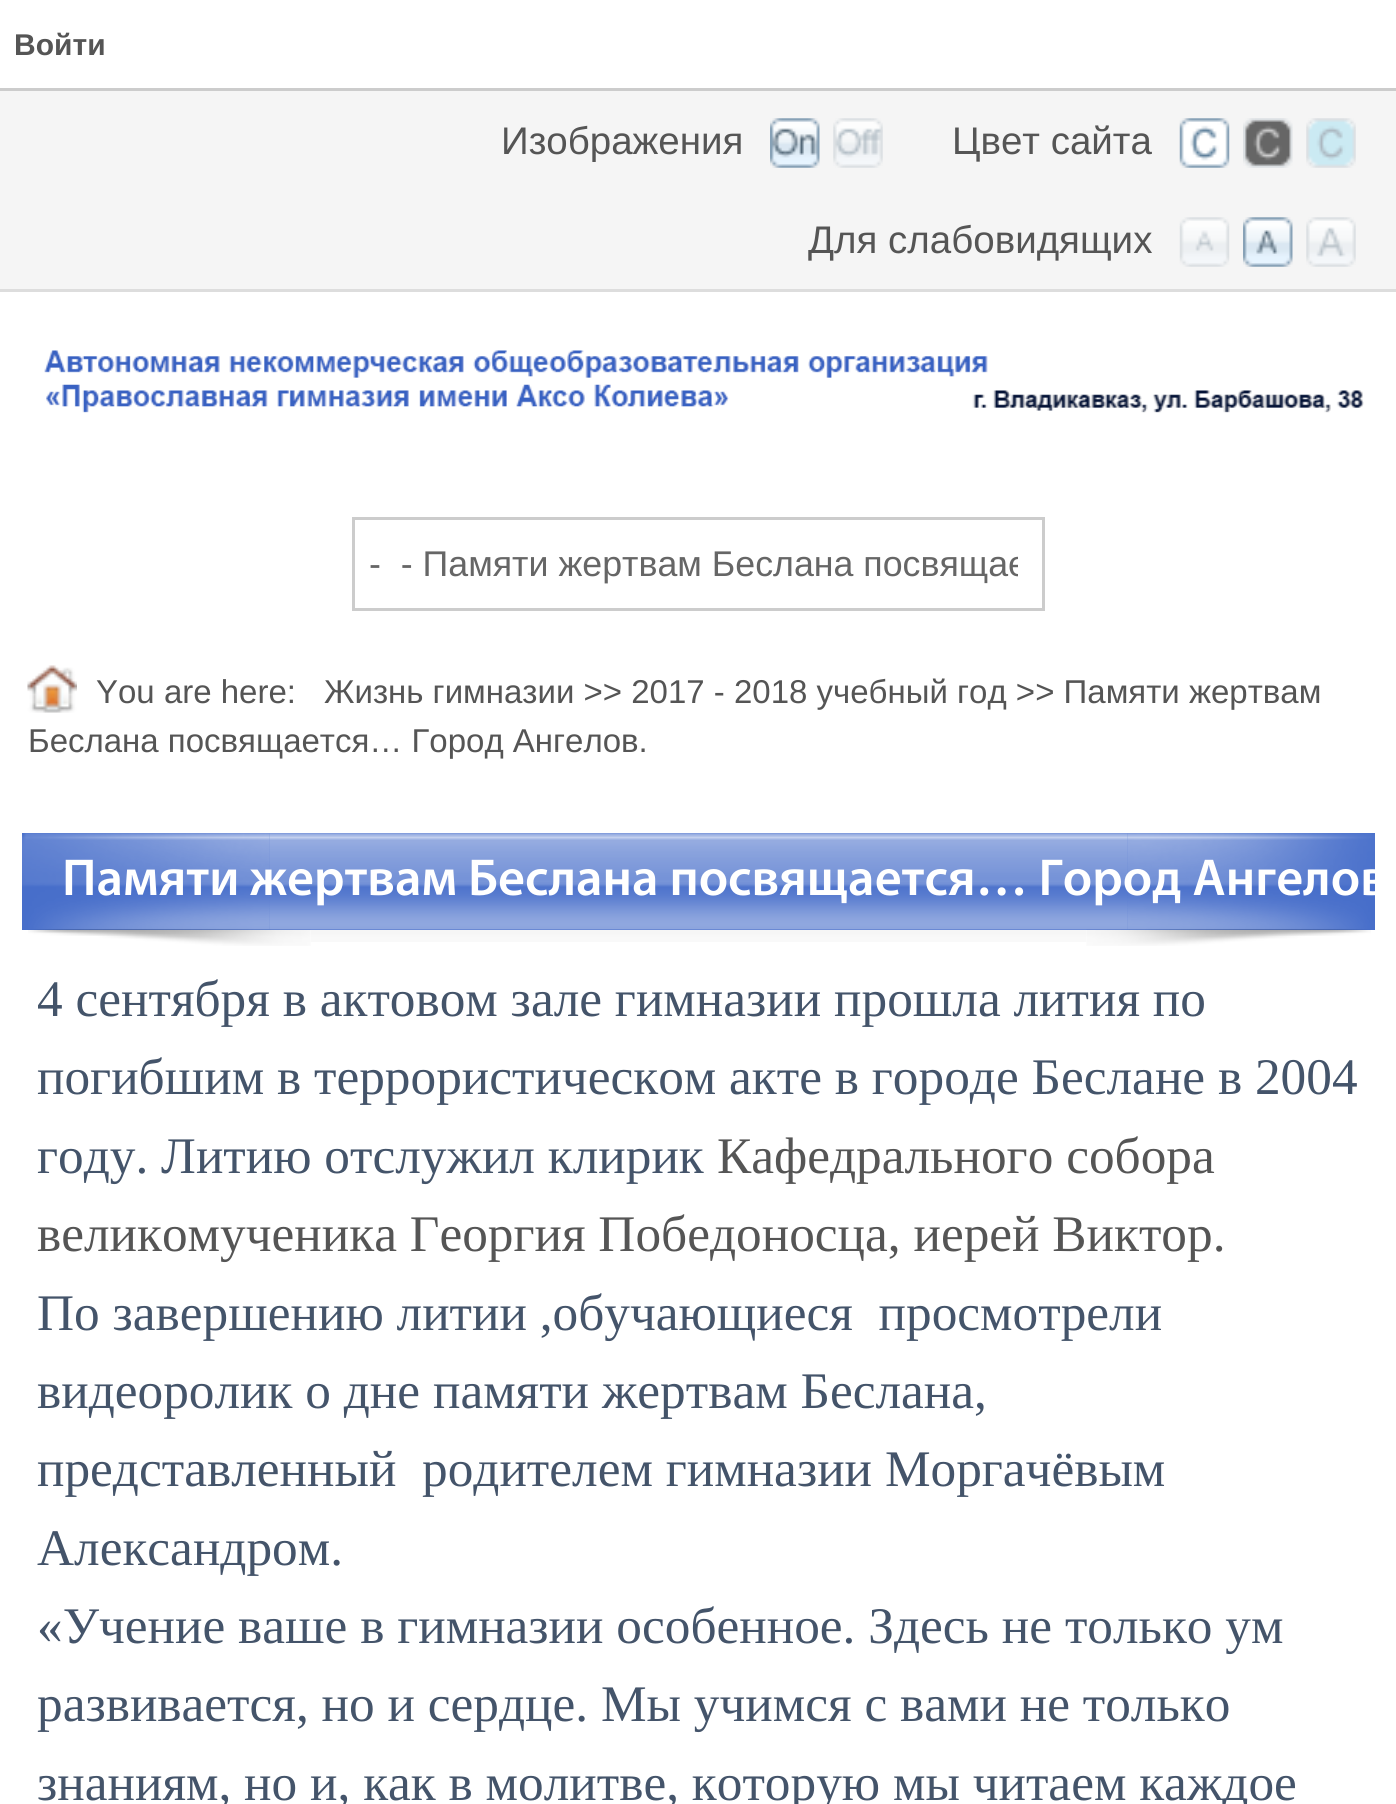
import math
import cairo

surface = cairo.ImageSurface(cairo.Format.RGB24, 1396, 1804)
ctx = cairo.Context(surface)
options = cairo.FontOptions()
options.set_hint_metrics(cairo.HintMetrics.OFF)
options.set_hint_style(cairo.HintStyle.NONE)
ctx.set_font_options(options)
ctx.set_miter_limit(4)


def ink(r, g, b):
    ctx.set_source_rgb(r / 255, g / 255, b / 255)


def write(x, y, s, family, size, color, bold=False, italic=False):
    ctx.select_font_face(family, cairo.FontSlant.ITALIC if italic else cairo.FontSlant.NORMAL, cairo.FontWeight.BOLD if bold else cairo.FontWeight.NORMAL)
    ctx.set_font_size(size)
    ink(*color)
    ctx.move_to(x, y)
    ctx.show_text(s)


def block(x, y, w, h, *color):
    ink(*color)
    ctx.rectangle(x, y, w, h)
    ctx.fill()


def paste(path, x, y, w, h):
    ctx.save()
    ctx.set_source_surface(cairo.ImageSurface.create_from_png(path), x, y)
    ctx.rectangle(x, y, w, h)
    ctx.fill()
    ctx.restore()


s1 = dict(family="Liberation Sans", size=30, color=(85, 85, 85), bold=True)
s2 = dict(family="Liberation Sans", size=38.5, color=(85, 85, 85))
s3 = dict(family="Liberation Sans", size=35.75, color=(102, 102, 102))
s4 = dict(family="Liberation Sans", size=33, color=(85, 85, 85))
s5 = dict(family="Myriad SemiBold", size=52.25, color=(255, 255, 255))
s6 = dict(family="Liberation Serif", size=51.3, color=(68, 84, 106))
s7 = dict(family="Liberation Serif", size=51.3, color=(85, 85, 85))

ink(255, 255, 255)
ctx.paint()
block(0, 91, 1396, 198, 245, 245, 245)
block(0, 289, 1396, 3, 221, 221, 221)
block(0, 88, 1396, 3, 204, 204, 204)
write(14, 55, "Войти", **s1)
write(501, 154, "Изображения", **s2)
paste("pic1.png", 770, 118, 50, 50)
paste("pic2.png", 833, 118, 50, 50)
write(952, 154, "Цвет сайта", **s2)
paste("pic3.png", 1179, 118, 51, 50)
paste("pic4.png", 1243, 118, 50, 50)
paste("pic5.png", 1306, 118, 50, 50)
write(808, 253, "Для слабовидящих", **s2)
paste("pic6.png", 1179, 217, 51, 50)
paste("pic7.png", 1243, 217, 50, 50)
paste("pic8.png", 1306, 217, 50, 50)
paste("pic9.png", 44, 350, 1320, 63)
ctx.rectangle(353.5, 518.5, 690, 91)
ink(204, 204, 204)
ctx.set_line_width(3)
ctx.stroke()
ctx.save()
ctx.rectangle(369, 539, 649, 50)
ctx.clip()
write(369, 576, "-  - Памяти жертвам Беслана посвящае", **s3)
ctx.restore()
paste("pic10.png", 27, 665, 50, 48)
write(96, 703, "You are here:", **s4)
write(324, 703, "Жизнь гимназии >> 2017 - 2018 учебный год >> Памяти жертвам", **s4)
write(28, 752, "Беслана посвящается… Город Ангелов.", **s4)
block(22, 833, 1353, 97, 71, 110, 202)
paste("pic11.png", 22, 833, 248, 97)
paste("pic12.png", 1127, 833, 248, 97)
paste("pic13.png", 269, 833, 859, 97)
write(62, 895, "Памяти жертвам Беслана посвящается… Город Ангелов", **s5)
paste("pic14.png", 28, 929, 283, 17)
paste("pic15.png", 1086, 929, 285, 17)
paste("pic16.png", 311, 930, 775, 12)
write(37, 1016, "4 сентября в актовом зале гимназии прошла лития по", **s6)
write(37, 1094, "погибшим в террористическом акте в городе Беслане в 2004", **s6)
write(37, 1173, "году. Литию отслужил клирик", **s6)
write(717, 1173, "Кафедрального собора", **s7)
write(37, 1251, "великомученика Георгия Победоносца, иерей Виктор.", **s7)
write(37, 1330, "По завершению литии ,обучающиеся  просмотрели", **s6)
write(37, 1408, "видеоролик о дне памяти жертвам Беслана,", **s6)
write(37, 1486, "представленный  родителем гимназии Моргачёвым", **s6)
write(37, 1565, "Александром.", **s6)
write(37, 1643, "«Учение ваше в гимназии особенное. Здесь не только ум", **s6)
write(37, 1721, "развивается, но и сердце. Мы учимся с вами не только", **s6)
write(37, 1800, "знаниям, но и, как в молитве, которую мы читаем каждое", **s6)
surface.write_to_png("screenshot.png")
